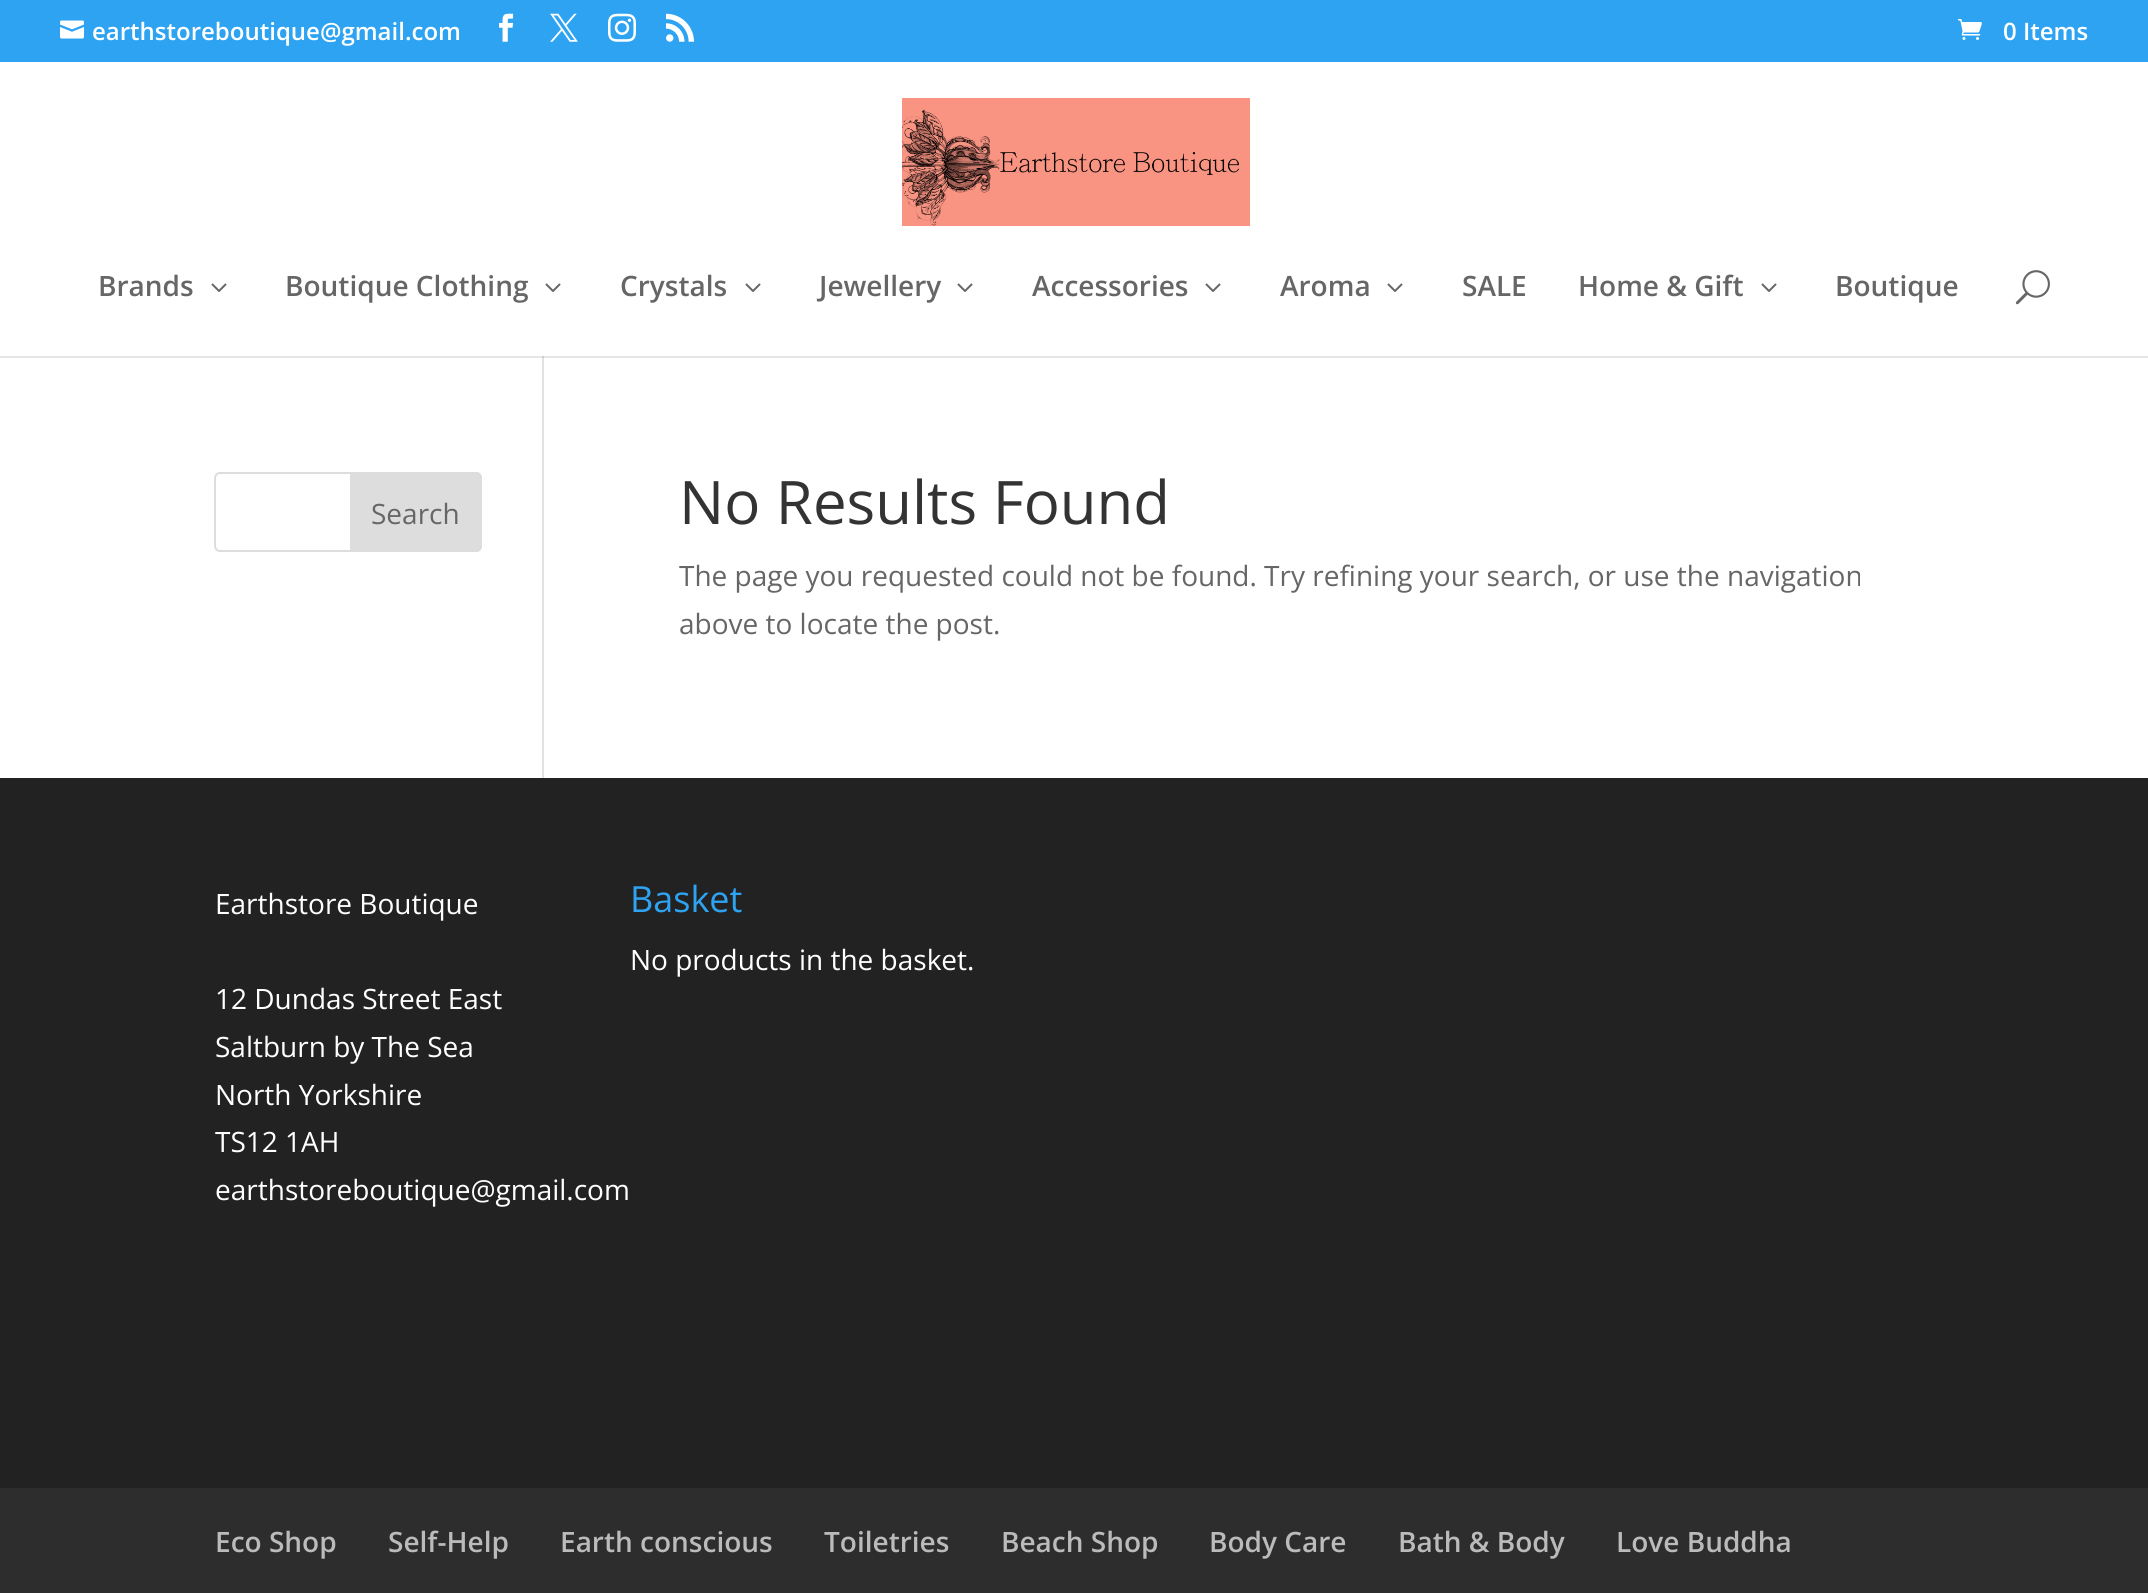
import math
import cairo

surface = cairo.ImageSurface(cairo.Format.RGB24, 2148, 1593)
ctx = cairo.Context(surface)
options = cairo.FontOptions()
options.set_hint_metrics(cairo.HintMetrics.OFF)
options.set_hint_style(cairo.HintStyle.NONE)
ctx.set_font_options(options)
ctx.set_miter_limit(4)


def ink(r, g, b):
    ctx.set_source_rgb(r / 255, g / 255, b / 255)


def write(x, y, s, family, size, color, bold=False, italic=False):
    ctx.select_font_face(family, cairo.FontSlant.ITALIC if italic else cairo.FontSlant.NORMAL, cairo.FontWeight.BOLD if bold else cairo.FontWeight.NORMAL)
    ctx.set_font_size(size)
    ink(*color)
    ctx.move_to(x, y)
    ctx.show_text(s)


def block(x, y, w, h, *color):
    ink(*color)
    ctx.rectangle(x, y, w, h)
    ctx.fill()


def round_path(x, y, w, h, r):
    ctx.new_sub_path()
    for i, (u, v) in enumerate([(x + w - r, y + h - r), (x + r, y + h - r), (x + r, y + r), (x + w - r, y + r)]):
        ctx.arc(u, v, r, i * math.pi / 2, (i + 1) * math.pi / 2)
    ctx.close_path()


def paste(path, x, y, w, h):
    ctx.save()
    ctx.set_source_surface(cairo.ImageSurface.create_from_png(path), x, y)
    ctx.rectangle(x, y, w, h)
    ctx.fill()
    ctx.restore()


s1 = dict(family="Open Sans SemiBold", size=24, color=(255, 255, 255))
s2 = dict(family="Open Sans SemiBold", size=28, color=(102, 102, 102))
s3 = dict(family="Open Sans", size=28, color=(102, 102, 102))
s4 = dict(family="Open Sans", size=60, color=(51, 51, 51))
s5 = dict(family="Open Sans", size=28, color=(255, 255, 255))
s6 = dict(family="Open Sans", size=36, color=(46, 163, 242))
s7 = dict(family="Open Sans SemiBold", size=28, color=(187, 187, 187))

ink(46, 163, 242)
ctx.paint()
paste("pic1.png", 60, 20, 24, 19)
write(92, 40, "earthstoreboutique@gmail.com", **s1)
paste("pic2.png", 499, 13, 15, 29)
paste("pic3.png", 550, 13, 28, 29)
paste("pic4.png", 608, 13, 28, 29)
paste("pic5.png", 666, 13, 28, 29)
paste("pic6.png", 1958, 19, 24, 21)
write(2003, 40, "0 Items", **s1)
block(0, 62, 2148, 716, 255, 255, 255)
block(542, 356, 2, 422, 226, 226, 226)
ctx.set_source_rgba(0, 0, 0, 0.1)
ctx.rectangle(0, 356, 2148, 2)
ctx.fill()
paste("pic7.png", 902, 98, 348, 128)
write(98, 296, "Brands", **s2)
paste("pic8.png", 211, 283, 16, 9)
write(285, 296, "Boutique Clothing", **s2)
paste("pic8.png", 545, 283, 16, 9)
write(620, 296, "Crystals", **s2)
paste("pic8.png", 745, 283, 16, 9)
write(819, 296, "Jewellery", **s2)
paste("pic8.png", 957, 283, 16, 9)
write(1032, 296, "Accessories", **s2)
paste("pic8.png", 1205, 283, 16, 9)
write(1280, 296, "Aroma", **s2)
paste("pic8.png", 1387, 283, 16, 9)
write(1462, 296, "SALE", **s2)
write(1578, 296, "Home & Gift", **s2)
paste("pic8.png", 1761, 283, 16, 9)
write(1835, 296, "Boutique", **s2)
paste("pic9.png", 2015, 270, 35, 35)
round_path(215, 473, 266, 78, 5)
ink(221, 221, 221)
ctx.stroke()
ctx.new_path()
ctx.move_to(351, 473)
ctx.line_to(476, 473)
ctx.curve_to(479, 473, 481, 475, 481, 478)
ctx.line_to(481, 546)
ctx.curve_to(481, 549, 479, 551, 476, 551)
ctx.line_to(351, 551)
ctx.close_path()
ctx.fill_preserve()
ctx.stroke()
write(371, 524, "Search", **s3)
write(679, 524, "No Results Found", **s4)
write(679, 586, "The page you requested could not be found. Try refining your search, or use the navigation", **s3)
write(679, 634, "above to locate the post.", **s3)
block(0, 778, 2148, 710, 34, 34, 34)
write(215, 914, "Earthstore Boutique", **s5)
write(215, 1009, "12 Dundas Street East", **s5)
write(215, 1057, "Saltburn by The Sea", **s5)
write(215, 1105, "North Yorkshire", **s5)
write(215, 1152, "TS12 1AH", **s5)
write(215, 1200, "earthstoreboutique@gmail.com", **s5)
write(630, 912, "Basket", **s6)
write(630, 970, "No products in the basket.", **s5)
block(0, 1488, 2148, 105, 45, 45, 45)
write(215, 1552, "Eco Shop", **s7)
write(388, 1552, "Self-Help", **s7)
write(560, 1552, "Earth conscious", **s7)
write(824, 1552, "Toiletries", **s7)
write(1001, 1552, "Beach Shop", **s7)
write(1209, 1552, "Body Care", **s7)
write(1398, 1552, "Bath & Body", **s7)
write(1616, 1552, "Love Buddha", **s7)
surface.write_to_png("screenshot.png")
